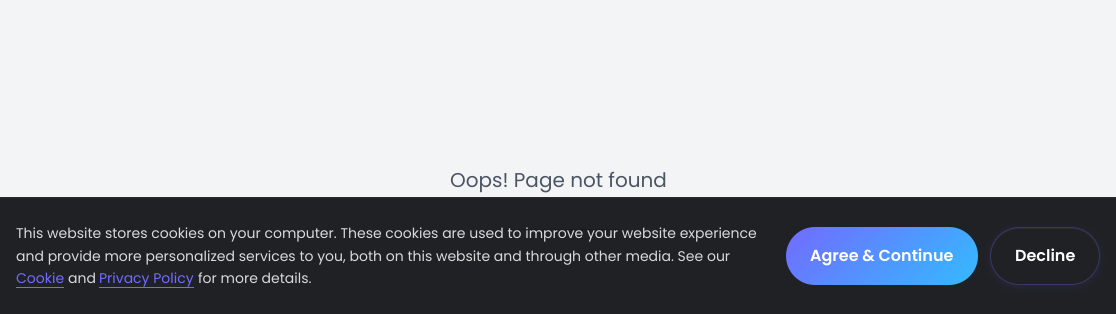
import math
import cairo

surface = cairo.ImageSurface(cairo.Format.RGB24, 1116, 314)
ctx = cairo.Context(surface)
options = cairo.FontOptions()
options.set_hint_metrics(cairo.HintMetrics.OFF)
options.set_hint_style(cairo.HintStyle.NONE)
ctx.set_font_options(options)
ctx.set_miter_limit(4)


def ink(r, g, b):
    ctx.set_source_rgb(r / 255, g / 255, b / 255)


def write(x, y, s, family, size, color, bold=False, italic=False):
    ctx.select_font_face(family, cairo.FontSlant.ITALIC if italic else cairo.FontSlant.NORMAL, cairo.FontWeight.BOLD if bold else cairo.FontWeight.NORMAL)
    ctx.set_font_size(size)
    ink(*color)
    ctx.move_to(x, y)
    ctx.show_text(s)


def block(x, y, w, h, *color):
    ink(*color)
    ctx.rectangle(x, y, w, h)
    ctx.fill()


def round_path(x, y, w, h, r):
    ctx.new_sub_path()
    for i, (u, v) in enumerate([(x + w - r, y + h - r), (x + r, y + h - r), (x + r, y + r), (x + w - r, y + r)]):
        ctx.arc(u, v, r, i * math.pi / 2, (i + 1) * math.pi / 2)
    ctx.close_path()


def blur_box(x, y, w, h, r, blur, alpha):
    ctx.push_group_with_content(cairo.Content.ALPHA)
    ctx.set_operator(cairo.Operator.SOURCE)
    for i in range(15, -16, -2):
        e = blur * i / 6
        if min(w, h) + 2 * e > 0:
            ctx.set_source_rgba(0, 0, 0, alpha * math.erfc((i - 1) / 8.5) / 2)
            round_path(x - e, y - e, w + 2 * e, h + 2 * e, max(0, min(r + e + blur * .6, min(w, h) / 2 + e)))
            ctx.fill()
    ctx.mask(ctx.pop_group())


s1 = dict(family="Poppins", size=20, color=(75, 85, 99))
s2 = dict(family="Poppins", size=14, color=(217, 217, 217))
s3 = dict(family="Poppins", size=14, color=(114, 107, 255))
s4 = dict(family="Poppins SemiBold", size=16, color=(255, 255, 255))

ink(243, 244, 246)
ctx.paint()
block(0, 198, 1116, 116, 31, 33, 37)
write(450, 187, "Oops! Page not found", **s1)
block(496, 229, 124, 1, 22, 27, 37)
block(0, 197, 1116, 1, 40, 44, 52)
write(16, 238, "This website stores cookies on your computer. These cookies are used to improve your website experience", **s2)
write(16, 261, "and provide more personalized services to you, both on this website and through other media. See our", **s2)
write(16, 283, "Cookie", **s3)
block(16, 287, 48, 1, 114, 107, 255)
write(68, 283, "and", **s2)
write(99, 283, "Privacy Policy", **s3)
block(99, 287, 95, 1, 114, 107, 255)
write(198, 283, "for more details.", **s2)
gradient = cairo.LinearGradient(820, 194, 945, 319)
gradient.add_color_stop_rgba(0, 0.447, 0.42, 1, 1)
gradient.add_color_stop_rgba(1, 0.2, 0.733, 1, 1)
ctx.set_source(gradient)
round_path(786, 227, 192, 58, 29)
ctx.fill()
write(810, 261, "Agree & Continue", **s4)
ctx.save()
ctx.set_fill_rule(cairo.FillRule.EVEN_ODD)
ctx.new_path()
ctx.move_to(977, 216)
ctx.line_to(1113, 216)
ctx.line_to(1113, 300)
ctx.line_to(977, 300)
ctx.close_path()
ctx.move_to(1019, 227)
ctx.line_to(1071, 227)
ctx.curve_to(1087, 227, 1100, 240, 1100, 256)
ctx.curve_to(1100, 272, 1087, 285, 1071, 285)
ctx.line_to(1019, 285)
ctx.curve_to(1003, 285, 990, 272, 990, 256)
ctx.curve_to(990, 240, 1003, 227, 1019, 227)
ctx.close_path()
ctx.clip()
ink(114, 107, 255)
blur_box(990, 229, 110, 58, 29, 4, 0.1)
ctx.restore()
ink(42, 44, 48)
ctx.new_path()
ctx.move_to(1019, 229)
ctx.line_to(1071, 229)
ctx.curve_to(1086, 229, 1099, 242, 1099, 257)
ctx.line_to(1099, 256)
ctx.curve_to(1099, 241, 1086, 228, 1071, 228)
ctx.line_to(1019, 228)
ctx.curve_to(1004, 228, 991, 241, 991, 256)
ctx.line_to(991, 257)
ctx.curve_to(991, 242, 1004, 229, 1019, 229)
ctx.close_path()
ctx.fill()
round_path(990.5, 227.5, 109, 57, 28.5)
ctx.set_source_rgba(0.447, 0.42, 1, 0.3)
ctx.set_line_width(1)
ctx.stroke()
write(1015, 261, "Decline", **s4)
surface.write_to_png("screenshot.png")
